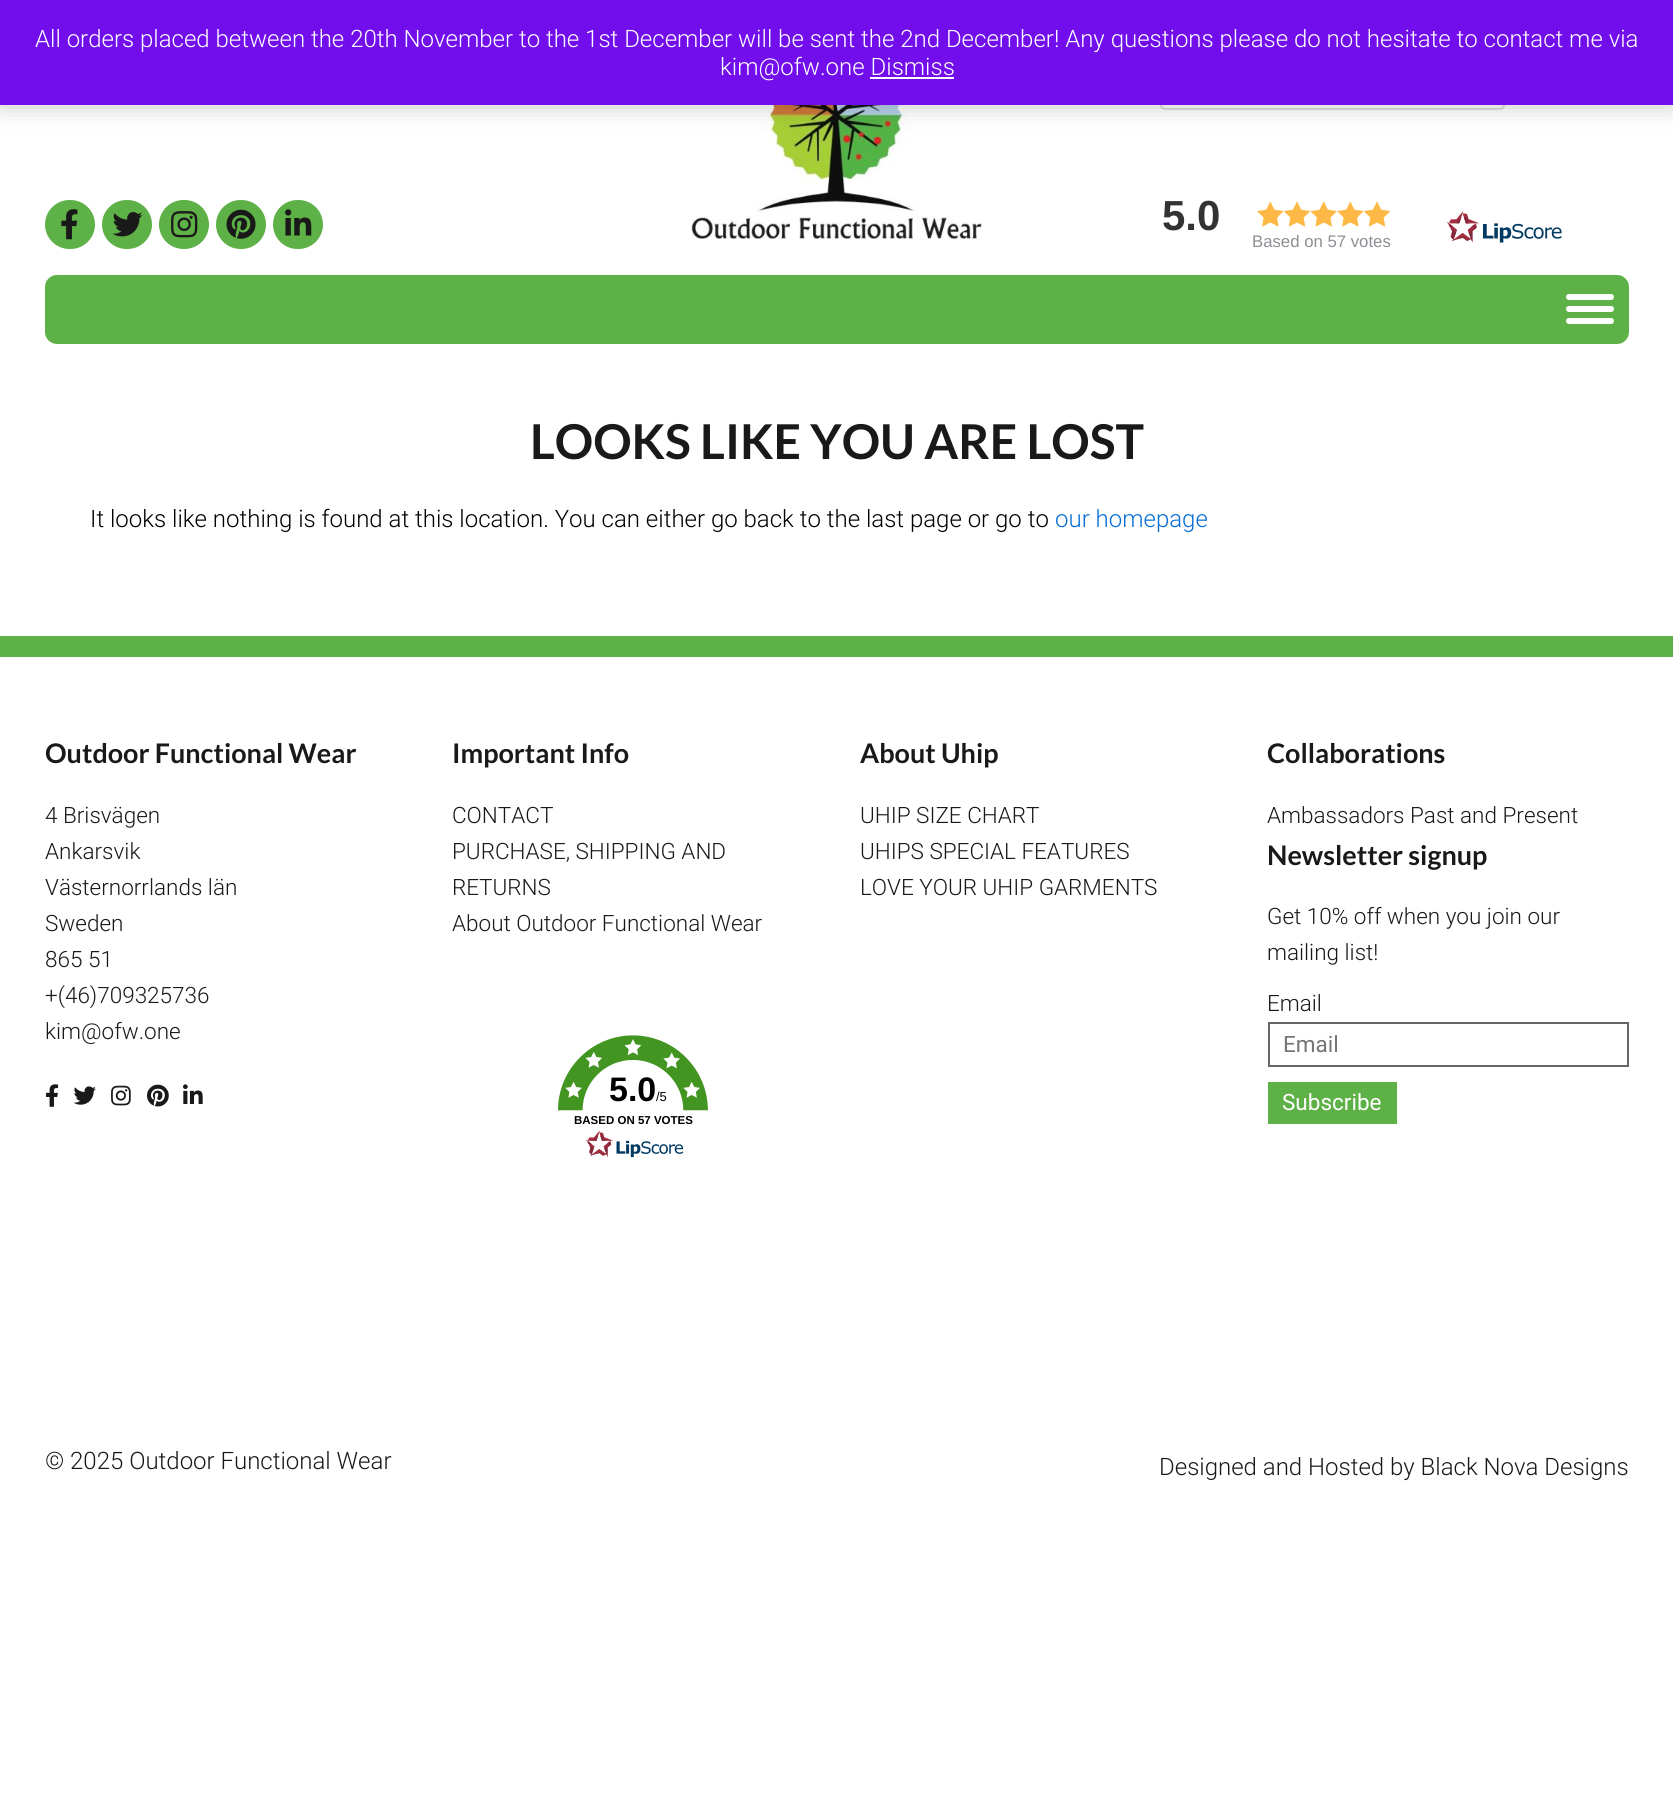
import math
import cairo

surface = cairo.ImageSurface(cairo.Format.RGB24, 1673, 1813)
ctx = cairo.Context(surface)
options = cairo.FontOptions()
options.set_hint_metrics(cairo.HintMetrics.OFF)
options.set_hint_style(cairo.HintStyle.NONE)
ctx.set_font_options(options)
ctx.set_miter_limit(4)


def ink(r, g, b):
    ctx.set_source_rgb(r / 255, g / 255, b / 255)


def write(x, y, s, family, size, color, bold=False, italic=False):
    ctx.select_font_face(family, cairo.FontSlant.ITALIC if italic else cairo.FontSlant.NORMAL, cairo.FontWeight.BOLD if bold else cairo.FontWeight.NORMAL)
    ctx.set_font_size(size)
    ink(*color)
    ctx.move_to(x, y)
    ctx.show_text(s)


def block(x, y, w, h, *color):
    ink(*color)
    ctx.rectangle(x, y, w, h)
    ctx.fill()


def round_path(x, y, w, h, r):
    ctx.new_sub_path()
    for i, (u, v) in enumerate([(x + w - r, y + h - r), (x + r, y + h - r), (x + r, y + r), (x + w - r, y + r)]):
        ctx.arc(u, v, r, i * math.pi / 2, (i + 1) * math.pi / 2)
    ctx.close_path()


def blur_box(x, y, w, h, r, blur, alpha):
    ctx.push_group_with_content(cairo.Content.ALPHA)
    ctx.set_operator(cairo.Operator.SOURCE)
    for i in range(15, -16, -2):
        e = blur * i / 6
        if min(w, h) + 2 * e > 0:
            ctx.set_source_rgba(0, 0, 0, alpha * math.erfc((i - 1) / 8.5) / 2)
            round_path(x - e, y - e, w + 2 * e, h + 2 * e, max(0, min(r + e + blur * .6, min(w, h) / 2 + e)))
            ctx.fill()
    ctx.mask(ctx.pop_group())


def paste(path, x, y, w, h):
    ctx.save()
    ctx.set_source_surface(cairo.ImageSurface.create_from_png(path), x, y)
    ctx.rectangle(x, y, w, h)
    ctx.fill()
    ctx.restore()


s1 = dict(family="Roboto Light", size=24, color=(255, 255, 255))
s2 = dict(family="Liberation Sans", size=42, color=(51, 51, 51), bold=True)
s3 = dict(family="Liberation Sans", size=16.75, color=(140, 143, 147))
s4 = dict(family="Lato", size=48, color=(25, 25, 25), bold=True)
s5 = dict(family="Roboto Light", size=24, color=(0, 0, 0))
s6 = dict(family="Roboto Light", size=24, color=(6, 109, 215))
s7 = dict(family="Lato", size=27, color=(25, 25, 25), bold=True)
s8 = dict(family="Roboto Light", size=22.5, color=(25, 25, 25))
s9 = dict(family="Liberation Sans", size=34, color=(0, 0, 0), bold=True)
s10 = dict(family="Liberation Sans", size=13, color=(0, 0, 0))
s11 = dict(family="Liberation Sans", size=11.5, color=(0, 0, 0), bold=True)
s12 = dict(family="Roboto", size=22.5, color=(117, 117, 117))
s13 = dict(family="Roboto", size=22.5, color=(255, 255, 255))
s14 = dict(family="Roboto Light", size=24, color=(25, 25, 25))

ink(255, 255, 255)
ctx.paint()
paste("pic6.png", 691, 105, 291, 134)
round_path(1161, 51, 343, 58, 4)
ink(221, 221, 221)
ctx.stroke()
ink(0, 0, 0)
blur_box(0, 2, 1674, 105, 0, 12, 0.2)
block(0, 0, 1673, 105, 114, 14, 236)
write(35, 47, "All orders placed between the 20th November to the 1st December will be sent the 2nd December! Any questions please do not hesitate to contact me via", **s1)
write(720, 75, "kim@ofw.one Dismiss", **s1)
block(870, 77, 84, 2, 252, 251, 254)
ink(94, 177, 70)
round_path(45, 200, 50, 49, 24.5)
ctx.fill()
paste("pic1.png", 61, 209, 17, 31)
round_path(102, 200, 50, 49, 24.5)
ctx.fill()
paste("pic2.png", 112, 212, 31, 25)
round_path(159, 200, 50, 49, 24.5)
ctx.fill()
paste("pic3.png", 171, 211, 27, 27)
round_path(216, 200, 50, 49, 24.5)
ctx.fill()
paste("pic4.png", 226, 209, 30, 30)
round_path(273, 200, 50, 49, 24.5)
ctx.fill()
paste("pic5.png", 285, 209, 27, 27)
write(1162, 230, "5.0", **s2)
paste("pic7.png", 1257, 201, 305, 42)
write(1252, 247, "Based on 57 votes", **s3)
ink(94, 177, 71)
round_path(45, 275, 1584, 69, 12)
ctx.fill()
ink(255, 255, 255)
round_path(1566, 294, 48, 6, 3)
ctx.fill()
round_path(1566, 306, 48, 6, 3)
ctx.fill()
round_path(1566, 318, 48, 6, 3)
ctx.fill()
write(530, 459, "LOOKS LIKE YOU ARE LOST", **s4)
write(90, 527, "It looks like nothing is found at this location. You can either go back to the last page or go to", **s5)
write(1055, 527, "our homepage", **s6)
block(0, 636, 1673, 21, 94, 177, 70)
write(45, 763, "Outdoor Functional Wear", **s7)
write(45, 823, "4 Brisvägen", **s8)
write(45, 859, "Ankarsvik", **s8)
write(45, 895, "Västernorrlands län", **s8)
write(45, 931, "Sweden", **s8)
write(45, 967, "865 51", **s8)
write(45, 1003, "+(46)709325736", **s8)
write(45, 1039, "kim@ofw.one", **s8)
paste("pic8.png", 46, 1084, 13, 23)
paste("pic9.png", 73, 1086, 23, 19)
paste("pic10.png", 111, 1085, 20, 21)
paste("pic11.png", 147, 1084, 22, 23)
paste("pic12.png", 183, 1084, 20, 20)
write(452, 763, "Important Info", **s7)
write(452, 823, "CONTACT", **s8)
write(452, 859, "PURCHASE, SHIPPING AND", **s8)
write(452, 895, "RETURNS", **s8)
write(452, 931, "About Outdoor Functional Wear", **s8)
paste("pic13.png", 558, 1035, 150, 123)
write(609, 1101, "5.0", **s9)
write(656, 1101, "/5", **s10)
write(574, 1124, "BASED ON 57 VOTES", **s11)
write(860, 763, "About Uhip", **s7)
write(860, 823, "UHIP SIZE CHART", **s8)
write(860, 859, "UHIPS SPECIAL FEATURES", **s8)
write(860, 895, "LOVE YOUR UHIP GARMENTS", **s8)
write(1267, 763, "Collaborations", **s7)
write(1267, 823, "Ambassadors Past and Present", **s8)
write(1267, 865, "Newsletter signup", **s7)
write(1267, 924, "Get 10% off when you join our", **s8)
write(1267, 960, "mailing list!", **s8)
write(1267, 1011, "Email", **s8)
ctx.rectangle(1269, 1023, 359, 43)
ink(102, 102, 102)
ctx.stroke()
write(1283, 1052, "Email", **s12)
block(1268, 1082, 129, 42, 94, 177, 70)
write(1282, 1110, "Subscribe", **s13)
write(45, 1469, "© 2025 Outdoor Functional Wear", **s14)
write(1159, 1475, "Designed and Hosted by Black Nova Designs", **s14)
surface.write_to_png("screenshot.png")
